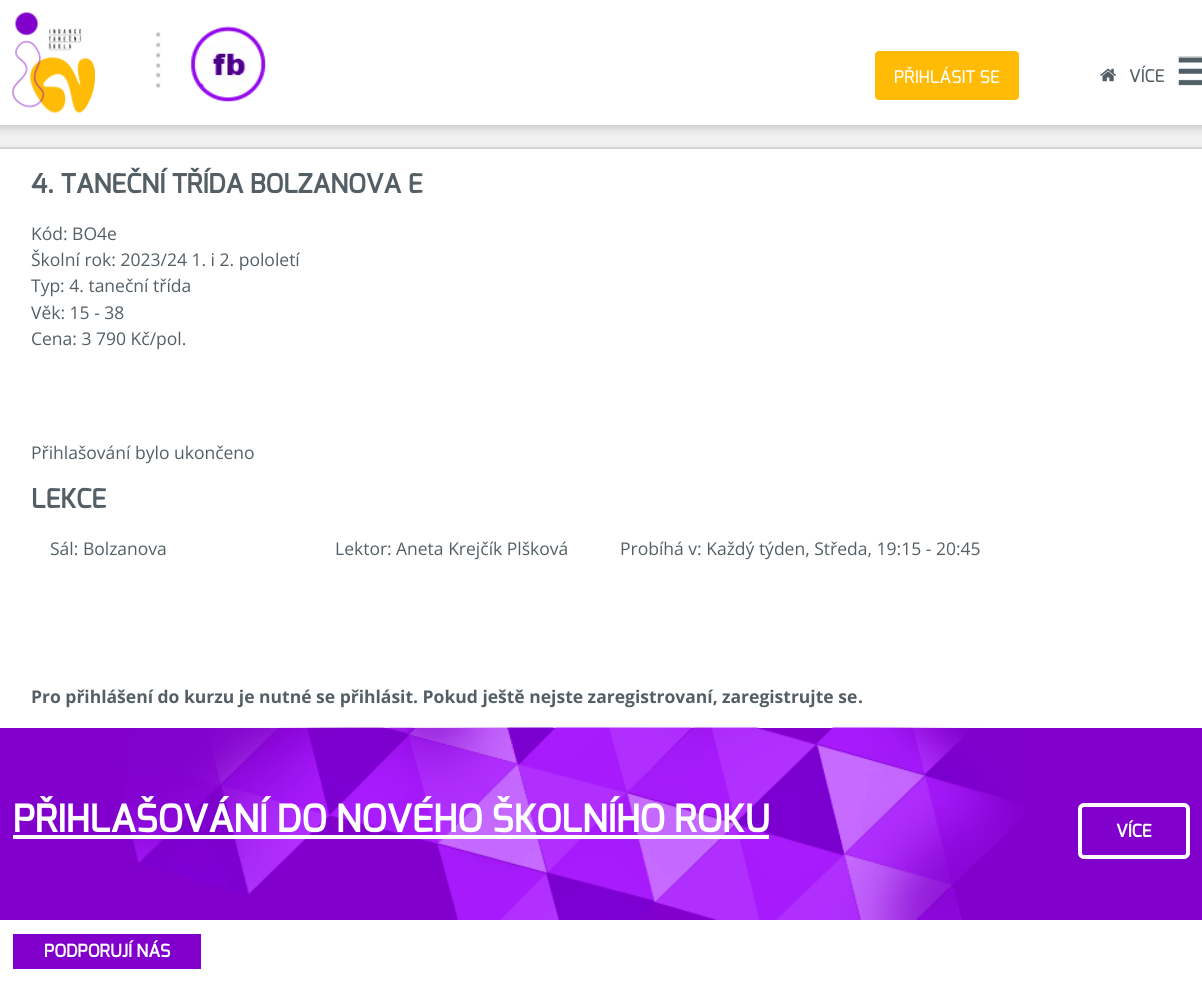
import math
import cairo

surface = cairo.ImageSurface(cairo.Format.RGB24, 1202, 984)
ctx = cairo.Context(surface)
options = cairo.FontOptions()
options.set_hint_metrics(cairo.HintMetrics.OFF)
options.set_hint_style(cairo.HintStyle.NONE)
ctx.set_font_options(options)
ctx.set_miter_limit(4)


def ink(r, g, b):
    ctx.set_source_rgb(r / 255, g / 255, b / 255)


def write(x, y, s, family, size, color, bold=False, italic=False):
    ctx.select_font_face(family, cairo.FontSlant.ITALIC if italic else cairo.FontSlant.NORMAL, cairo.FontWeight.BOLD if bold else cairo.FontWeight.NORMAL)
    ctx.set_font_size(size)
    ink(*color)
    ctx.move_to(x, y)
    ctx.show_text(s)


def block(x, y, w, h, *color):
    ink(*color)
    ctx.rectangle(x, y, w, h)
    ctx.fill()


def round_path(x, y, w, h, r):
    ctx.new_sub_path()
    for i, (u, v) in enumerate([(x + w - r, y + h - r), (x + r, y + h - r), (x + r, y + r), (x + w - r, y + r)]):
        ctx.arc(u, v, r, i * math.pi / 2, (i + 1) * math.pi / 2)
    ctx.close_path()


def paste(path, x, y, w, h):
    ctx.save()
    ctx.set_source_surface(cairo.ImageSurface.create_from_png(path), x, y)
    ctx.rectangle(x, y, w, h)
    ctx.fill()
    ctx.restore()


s1 = dict(family="Exo Medium", size=17.5, color=(255, 255, 255))
s2 = dict(family="Exo Medium", size=17.5, color=(84, 95, 101))
s3 = dict(family="Exo", size=26.25, color=(84, 95, 101), bold=True)
s4 = dict(family="Open Sans", size=17.5, color=(84, 95, 101))
s5 = dict(family="Open Sans", size=17.5, color=(84, 95, 101), bold=True)
s6 = dict(family="Exo", size=37.5, color=(255, 255, 255), bold=True)
s7 = dict(family="Exo", size=17.5, color=(255, 255, 255), bold=True)

ink(255, 255, 255)
ctx.paint()
paste("pic1.png", 12, 12, 83, 101)
paste("pic2.png", 156, 32, 5, 56)
paste("pic3.png", 190, 26, 77, 76)
ink(255, 187, 5)
round_path(875, 51, 144, 49, 4)
ctx.fill()
write(894, 83, "PŘIHLÁSIT SE", **s1)
paste("pic4.png", 1100, 68, 16, 14)
write(1129, 82, "VÍCE", **s2)
block(1178, 56, 24, 30, 81, 94, 102)
paste("pic5.png", 1178, 56, 24, 30)
paste("pic6.png", 0, 125, 1202, 24)
write(31, 193, "4. TANEČNÍ TŘÍDA BOLZANOVA E", **s3)
write(31, 240, "Kód: BO4e", **s4)
write(31, 266, "Školní rok: 2023/24 1. i 2. pololetí", **s4)
write(31, 292, "Typ: 4. taneční třída", **s4)
write(31, 319, "Věk: 15 - 38", **s4)
write(31, 345, "Cena: 3 790 Kč/pol.", **s4)
write(31, 459, "Přihlašování bylo ukončeno", **s4)
write(31, 508, "LEKCE", **s3)
write(50, 555, "Sál: Bolzanova", **s4)
write(335, 555, "Lektor:", **s4)
write(396, 555, "Aneta Krejčík Plšková", **s4)
write(620, 555, "Probíhá v: Každý týden, Středa, 19:15 - 20:45", **s4)
write(31, 703, "Pro přihlášení do kurzu je nutné se přihlásit. Pokud ještě nejste zaregistrovaní,", **s5)
write(722, 703, "zaregistrujte se", **s5)
write(858, 703, ".", **s5)
block(0, 728, 1202, 192, 129, 0, 204)
paste("pic7.png", 123, 727, 901, 193)
write(13, 832, "PŘIHLAŠOVÁNÍ DO NOVÉHO ŠKOLNÍHO ROKU", **s6)
block(13, 835, 756, 4, 255, 255, 255)
round_path(1080, 805, 108, 52, 4)
ctx.set_line_width(4)
ctx.stroke()
write(1116, 837, "VÍCE", **s7)
block(13, 934, 188, 35, 129, 0, 204)
write(44, 957, "PODPORUJÍ NÁS", **s7)
surface.write_to_png("screenshot.png")
